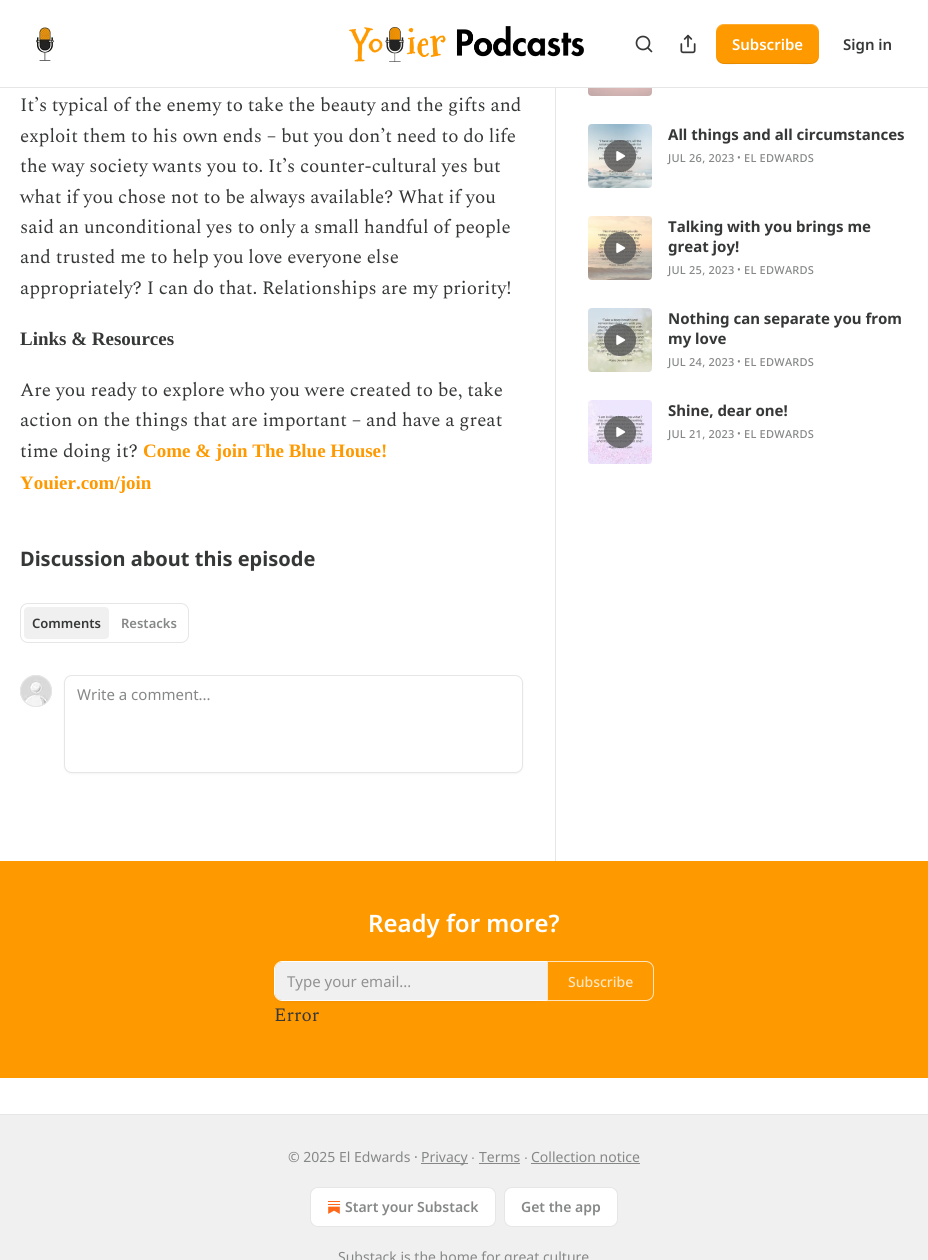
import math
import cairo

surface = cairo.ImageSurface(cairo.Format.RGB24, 928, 1260)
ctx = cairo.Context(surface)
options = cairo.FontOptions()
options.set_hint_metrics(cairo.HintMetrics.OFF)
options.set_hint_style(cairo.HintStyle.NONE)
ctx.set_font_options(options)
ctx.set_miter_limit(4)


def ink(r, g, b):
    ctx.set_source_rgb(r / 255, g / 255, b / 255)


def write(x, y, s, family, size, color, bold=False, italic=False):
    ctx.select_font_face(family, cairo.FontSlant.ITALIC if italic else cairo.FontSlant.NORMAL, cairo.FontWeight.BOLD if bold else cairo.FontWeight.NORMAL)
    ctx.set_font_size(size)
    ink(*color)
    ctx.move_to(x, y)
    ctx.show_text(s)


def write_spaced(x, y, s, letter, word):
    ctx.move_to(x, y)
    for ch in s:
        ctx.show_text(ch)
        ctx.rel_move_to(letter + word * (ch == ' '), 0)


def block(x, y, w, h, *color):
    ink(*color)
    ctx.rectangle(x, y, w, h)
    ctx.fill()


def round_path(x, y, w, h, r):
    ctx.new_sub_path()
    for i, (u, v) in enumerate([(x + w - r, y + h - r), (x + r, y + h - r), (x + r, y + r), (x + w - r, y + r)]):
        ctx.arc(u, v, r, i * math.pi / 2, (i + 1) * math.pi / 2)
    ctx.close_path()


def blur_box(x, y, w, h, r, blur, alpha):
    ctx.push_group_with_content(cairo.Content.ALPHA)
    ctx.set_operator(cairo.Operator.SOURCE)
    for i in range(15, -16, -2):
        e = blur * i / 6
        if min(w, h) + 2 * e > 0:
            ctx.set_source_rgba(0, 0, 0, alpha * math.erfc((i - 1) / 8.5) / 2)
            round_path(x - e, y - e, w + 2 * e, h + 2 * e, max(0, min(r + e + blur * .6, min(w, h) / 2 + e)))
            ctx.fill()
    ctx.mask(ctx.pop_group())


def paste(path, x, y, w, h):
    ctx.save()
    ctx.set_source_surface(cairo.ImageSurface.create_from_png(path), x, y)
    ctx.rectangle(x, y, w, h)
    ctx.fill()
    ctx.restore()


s1 = dict(family="Noto Sans SemiBold", size=15, color=(255, 255, 255))
s2 = dict(family="Noto Sans SemiBold", size=15, color=(54, 55, 55))
s3 = dict(family="Spectral", size=19, color=(54, 55, 55))
s4 = dict(family="Liberation Serif", size=19, color=(54, 55, 55), bold=True)
s5 = dict(family="Liberation Serif", size=19, color=(255, 153, 0), bold=True)
s6 = dict(family="Noto Sans", size=20, color=(54, 55, 55), bold=True)
s7 = dict(family="Noto Sans SemiBold", size=13, color=(54, 55, 55))
s8 = dict(family="Noto Sans SemiBold", size=13, color=(134, 135, 135))
s9 = dict(family="Noto Sans", size=15, color=(134, 135, 135))
s10 = dict(family="Noto Sans", size=15, color=(54, 55, 55), bold=True)
s11 = dict(family="Noto Sans SemiBold", size=24, color=(255, 255, 255))
s12 = dict(family="Noto Sans", size=15, color=(146, 146, 146))
s13 = dict(family="Noto Sans Medium", size=14, color=(255, 230, 191))
s14 = dict(family="Noto Sans", size=14, color=(134, 135, 135))
s15 = dict(family="Liberation Sans", size=14, color=(134, 135, 135))
s16 = dict(family="Noto Sans SemiBold", size=14, color=(134, 135, 135))

ink(255, 255, 255)
ctx.paint()
block(0, 87, 928, 1, 230, 230, 230)
paste("pic1.png", 35, 27, 20, 34)
paste("pic2.png", 349, 26, 235, 36)
ctx.arc(643, 43, 6.5, 0, 2 * math.pi)
ink(54, 55, 55)
ctx.set_line_width(1.7)
ctx.stroke()
ctx.new_path()
ctx.move_to(651.5, 51.5)
ctx.line_to(648, 48)
ctx.set_line_cap(cairo.LineCap.ROUND)
ctx.set_line_join(cairo.LineJoin.ROUND)
ctx.stroke()
paste("pic3.png", 680, 34, 16, 20)
ink(255, 153, 0)
round_path(716, 24, 103, 40, 8)
ctx.fill()
ctx.set_source_rgba(0, 0, 0, 0.1)
ctx.new_path()
ctx.move_to(716, 55)
ctx.curve_to(716, 67, 730, 64, 738, 64)
ctx.line_to(796, 64)
ctx.curve_to(805, 64, 819, 67, 819, 55)
ctx.curve_to(819, 59, 815, 63, 811, 63)
ctx.line_to(724, 63)
ctx.curve_to(720, 63, 716, 59, 716, 55)
ctx.close_path()
ctx.fill()
ctx.set_source_rgba(1, 1, 1, 0.2)
ctx.new_path()
ctx.move_to(724, 25)
ctx.line_to(811, 25)
ctx.curve_to(815, 25, 819, 29, 819, 33)
ctx.curve_to(819, 21, 805, 24, 796, 24)
ctx.line_to(738, 24)
ctx.curve_to(730, 24, 716, 21, 716, 33)
ctx.curve_to(716, 29, 720, 25, 724, 25)
ctx.close_path()
ctx.fill()
write(732, 50, "Subscribe", **s1)
write(843, 50, "Sign in", **s2)
write(20, 111, "It’s typical of the enemy to take the beauty and the gifts and", **s3)
write(20, 142, "exploit them to his own ends – but you don’t need to do life", **s3)
write(20, 172, "the way society wants you to. It’s counter-cultural yes but", **s3)
write(20, 203, "what if you chose not to be always available? What if you", **s3)
write(20, 233, "said an unconditional yes to only a small handful of people", **s3)
write(20, 263, "and trusted me to help you love everyone else", **s3)
write(20, 294, "appropriately? I can do that. Relationships are my priority!", **s3)
write(20, 345, "Links & Resources", **s4)
write(20, 396, "Are you ready to explore who you were created to be, take", **s3)
write(20, 426, "action on the things that are important – and have a great", **s3)
write(20, 457, "time doing it?", **s3)
write(143, 457, "Come & join The Blue House!", **s5)
write(20, 489, "Youier.com/join", **s5)
write(20, 566, "Discussion about this episode", **s6)
round_path(20.5, 603.5, 168, 39, 7.5)
ink(230, 230, 230)
ctx.set_line_width(1)
ctx.set_line_cap(cairo.LineCap.BUTT)
ctx.set_line_join(cairo.LineJoin.MITER)
ctx.stroke()
ink(240, 240, 240)
round_path(24, 607, 85, 32, 4)
ctx.fill()
write(32, 628, "Comments", **s7)
write(121, 628, "Restacks", **s8)
ctx.new_path()
ctx.arc(36, 691, 15.5, 0, 2 * math.pi)
ink(230, 230, 230)
ctx.stroke()
paste("pic4.png", 20, 675, 32, 32)
ctx.arc(36, 691, 15.5, 0, 2 * math.pi)
ctx.stroke()
ink(0, 0, 0)
blur_box(64, 676, 459, 98, 8, 1, 0.05)
ink(255, 255, 255)
round_path(64.5, 675.5, 458, 97, 7.5)
ctx.fill_preserve()
ink(230, 230, 230)
ctx.stroke()
write(77, 700, "Write a comment...", **s9)
block(555, 88, 1, 773, 230, 230, 230)
paste("pic5.png", 588, 88, 64, 8)
paste("pic6.png", 588, 124, 64, 64)
ctx.set_source_rgba(0.157, 0.157, 0.157, 0.75)
ctx.arc(620, 156, 16, 0, 2 * math.pi)
ctx.fill()
ctx.set_source_rgba(0, 0, 0, 0.1)
ctx.new_path()
ctx.move_to(620, 140)
ctx.curve_to(616.5, 140, 613, 141, 610, 143.5)
ctx.curve_to(598.5, 152.5, 604.5, 172, 620, 172)
ctx.curve_to(635.5, 172, 641.5, 152.5, 630, 143.5)
ctx.curve_to(627, 141, 623.5, 140, 620, 140)
ctx.close_path()
ctx.fill()
ctx.set_source_rgba(1, 1, 1, 0.2)
ctx.new_path()
ctx.move_to(620, 140)
ctx.curve_to(604.5, 140, 598.5, 159.5, 610, 168.5)
ctx.curve_to(613, 171, 616.5, 172, 620, 172)
ctx.curve_to(623.5, 172, 627, 171, 630, 168.5)
ctx.curve_to(641.5, 159.5, 635.5, 140, 620, 140)
ctx.close_path()
ctx.fill()
paste("pic7.png", 616, 151, 10, 10)
write(668, 140, "All things and all circumstances", **s10)
ctx.select_font_face("Noto Sans Medium")
ctx.set_font_size(11)
ink(134, 135, 135)
write_spaced(668, 162, "JUL 26, 2023", 0.25, 0)
ctx.select_font_face("Noto Sans")
ctx.set_font_size(10)
write_spaced(737, 161, "•", 0.25, 0)
ctx.select_font_face("Noto Sans Medium")
ctx.set_font_size(11)
write_spaced(744, 162, "EL EDWARDS", 0.25, 0)
paste("pic8.png", 588, 216, 64, 64)
ctx.set_source_rgba(0.157, 0.157, 0.157, 0.75)
ctx.arc(620, 248, 16, 0, 2 * math.pi)
ctx.fill()
ctx.set_source_rgba(0, 0, 0, 0.1)
ctx.new_path()
ctx.move_to(620, 232)
ctx.curve_to(616.5, 232, 613, 233, 610, 235.5)
ctx.curve_to(598.5, 244.5, 604.5, 264, 620, 264)
ctx.curve_to(635.5, 264, 641.5, 244.5, 630, 235.5)
ctx.curve_to(627, 233, 623.5, 232, 620, 232)
ctx.close_path()
ctx.fill()
ctx.set_source_rgba(1, 1, 1, 0.2)
ctx.new_path()
ctx.move_to(620, 232)
ctx.curve_to(604.5, 232, 598.5, 251.5, 610, 260.5)
ctx.curve_to(613, 263, 616.5, 264, 620, 264)
ctx.curve_to(623.5, 264, 627, 263, 630, 260.5)
ctx.curve_to(641.5, 251.5, 635.5, 232, 620, 232)
ctx.close_path()
ctx.fill()
paste("pic9.png", 616, 243, 10, 10)
write(668, 232, "Talking with you brings me", **s10)
write(668, 252, "great joy!", **s10)
ctx.select_font_face("Noto Sans Medium")
ctx.set_font_size(11)
ink(134, 135, 135)
write_spaced(668, 274, "JUL 25, 2023", 0.25, 0)
ctx.select_font_face("Noto Sans")
ctx.set_font_size(10)
write_spaced(737, 273, "•", 0.25, 0)
ctx.select_font_face("Noto Sans Medium")
ctx.set_font_size(11)
write_spaced(744, 274, "EL EDWARDS", 0.25, 0)
paste("pic10.png", 588, 308, 64, 64)
ctx.set_source_rgba(0.157, 0.157, 0.157, 0.75)
ctx.arc(620, 340, 16, 0, 2 * math.pi)
ctx.fill()
ctx.set_source_rgba(0, 0, 0, 0.1)
ctx.new_path()
ctx.move_to(620, 324)
ctx.curve_to(616.5, 324, 613, 325, 610, 327.5)
ctx.curve_to(598.5, 336.5, 604.5, 356, 620, 356)
ctx.curve_to(635.5, 356, 641.5, 336.5, 630, 327.5)
ctx.curve_to(627, 325, 623.5, 324, 620, 324)
ctx.close_path()
ctx.fill()
ctx.set_source_rgba(1, 1, 1, 0.2)
ctx.new_path()
ctx.move_to(620, 324)
ctx.curve_to(604.5, 324, 598.5, 343.5, 610, 352.5)
ctx.curve_to(613, 355, 616.5, 356, 620, 356)
ctx.curve_to(623.5, 356, 627, 355, 630, 352.5)
ctx.curve_to(641.5, 343.5, 635.5, 324, 620, 324)
ctx.close_path()
ctx.fill()
paste("pic11.png", 616, 335, 10, 10)
write(668, 324, "Nothing can separate you from", **s10)
write(668, 344, "my love", **s10)
ctx.select_font_face("Noto Sans Medium")
ctx.set_font_size(11)
ink(134, 135, 135)
write_spaced(668, 366, "JUL 24, 2023", 0.25, 0)
ctx.select_font_face("Noto Sans")
ctx.set_font_size(10)
write_spaced(737, 365, "•", 0.25, 0)
ctx.select_font_face("Noto Sans Medium")
ctx.set_font_size(11)
write_spaced(744, 366, "EL EDWARDS", 0.25, 0)
paste("pic12.png", 588, 400, 64, 64)
ctx.set_source_rgba(0.157, 0.157, 0.157, 0.75)
ctx.arc(620, 432, 16, 0, 2 * math.pi)
ctx.fill()
ctx.set_source_rgba(0, 0, 0, 0.1)
ctx.new_path()
ctx.move_to(620, 416)
ctx.curve_to(616.5, 416, 613, 417, 610, 419.5)
ctx.curve_to(598.5, 428.5, 604.5, 448, 620, 448)
ctx.curve_to(635.5, 448, 641.5, 428.5, 630, 419.5)
ctx.curve_to(627, 417, 623.5, 416, 620, 416)
ctx.close_path()
ctx.fill()
ctx.set_source_rgba(1, 1, 1, 0.2)
ctx.new_path()
ctx.move_to(620, 416)
ctx.curve_to(604.5, 416, 598.5, 435.5, 610, 444.5)
ctx.curve_to(613, 447, 616.5, 448, 620, 448)
ctx.curve_to(623.5, 448, 627, 447, 630, 444.5)
ctx.curve_to(641.5, 435.5, 635.5, 416, 620, 416)
ctx.close_path()
ctx.fill()
paste("pic13.png", 616, 427, 10, 10)
write(668, 416, "Shine, dear one!", **s10)
ctx.select_font_face("Noto Sans Medium")
ctx.set_font_size(11)
ink(134, 135, 135)
write_spaced(668, 438, "JUL 21, 2023", 0.25, 0)
ctx.select_font_face("Noto Sans")
ctx.set_font_size(10)
write_spaced(737, 437, "•", 0.25, 0)
ctx.select_font_face("Noto Sans Medium")
ctx.set_font_size(11)
write_spaced(744, 438, "EL EDWARDS", 0.25, 0)
block(0, 861, 928, 217, 255, 153, 0)
write(368, 932, "Ready for more?", **s11)
ink(0, 0, 0)
blur_box(274, 962, 273, 40, 8, 1, 0.05)
ink(240, 240, 240)
ctx.new_path()
ctx.move_to(282, 962)
ctx.line_to(547, 962)
ctx.line_to(547, 1000)
ctx.line_to(282, 1000)
ctx.curve_to(278, 1000, 275, 997, 275, 993)
ctx.line_to(275, 969)
ctx.curve_to(275, 965, 278, 962, 282, 962)
ctx.close_path()
ctx.fill()
ink(255, 255, 255)
ctx.set_fill_rule(cairo.FillRule.EVEN_ODD)
ctx.new_path()
ctx.move_to(282, 961)
ctx.line_to(547, 961)
ctx.line_to(547, 1001)
ctx.line_to(282, 1001)
ctx.curve_to(278, 1001, 274, 997, 274, 993)
ctx.line_to(274, 969)
ctx.curve_to(274, 965, 278, 961, 282, 961)
ctx.close_path()
ctx.move_to(282, 962)
ctx.line_to(547, 962)
ctx.line_to(547, 1000)
ctx.line_to(282, 1000)
ctx.curve_to(278, 1000, 275, 997, 275, 993)
ctx.line_to(275, 969)
ctx.curve_to(275, 965, 278, 962, 282, 962)
ctx.close_path()
ctx.fill()
write(287, 987, "Type your email...", **s12)
ctx.set_source_rgba(1, 0.6, 0, 0.75)
ctx.new_path()
ctx.move_to(547.5, 961.5)
ctx.line_to(646, 961.5)
ctx.curve_to(650, 961.5, 653.5, 965, 653.5, 969)
ctx.line_to(653.5, 993)
ctx.curve_to(653.5, 997, 650, 1000.5, 646, 1000.5)
ctx.line_to(547.5, 1000.5)
ctx.close_path()
ctx.fill_preserve()
ink(255, 229, 191)
ctx.stroke()
write(568, 987, "Subscribe", **s13)
write(274, 1021, "Error", **s3)
block(0, 1115, 928, 145, 240, 240, 240)
block(0, 1114, 928, 1, 230, 230, 230)
write(288, 1162, "© 2025 El Edwards ·", **s14)
block(421, 1163, 47, 1, 134, 135, 135)
write(421, 1162, "Privacy", **s14)
write(471, 1162, "∙", **s15)
write(479, 1162, "Terms", **s14)
block(479, 1163, 41, 1, 134, 135, 135)
write(524, 1162, "∙", **s15)
write(531, 1162, "Collection notice", **s14)
block(531, 1163, 109, 1, 134, 135, 135)
ink(255, 255, 255)
round_path(310.5, 1187.5, 185, 39, 7.5)
ctx.fill_preserve()
ink(230, 230, 230)
ctx.stroke()
paste("pic14.png", 328, 1201, 12, 13)
write(345, 1212, "Start your Substack", **s16)
ink(255, 255, 255)
round_path(504.5, 1187.5, 113, 39, 7.5)
ctx.fill_preserve()
ink(230, 230, 230)
ctx.stroke()
write(521, 1212, "Get the app", **s16)
write(338, 1262, "Substack is the home for great culture", **s14)
surface.write_to_png("screenshot.png")
